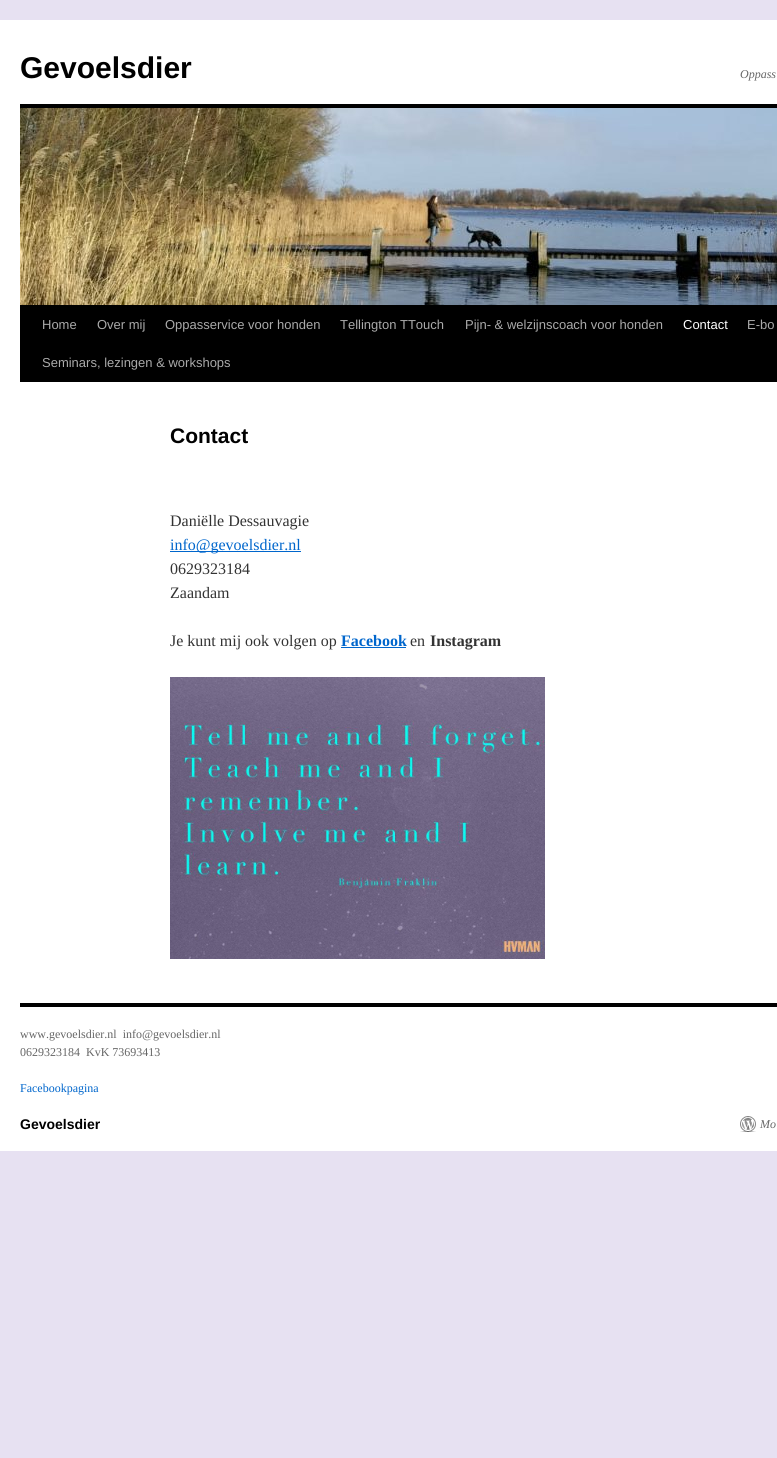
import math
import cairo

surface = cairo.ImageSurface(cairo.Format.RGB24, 777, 1458)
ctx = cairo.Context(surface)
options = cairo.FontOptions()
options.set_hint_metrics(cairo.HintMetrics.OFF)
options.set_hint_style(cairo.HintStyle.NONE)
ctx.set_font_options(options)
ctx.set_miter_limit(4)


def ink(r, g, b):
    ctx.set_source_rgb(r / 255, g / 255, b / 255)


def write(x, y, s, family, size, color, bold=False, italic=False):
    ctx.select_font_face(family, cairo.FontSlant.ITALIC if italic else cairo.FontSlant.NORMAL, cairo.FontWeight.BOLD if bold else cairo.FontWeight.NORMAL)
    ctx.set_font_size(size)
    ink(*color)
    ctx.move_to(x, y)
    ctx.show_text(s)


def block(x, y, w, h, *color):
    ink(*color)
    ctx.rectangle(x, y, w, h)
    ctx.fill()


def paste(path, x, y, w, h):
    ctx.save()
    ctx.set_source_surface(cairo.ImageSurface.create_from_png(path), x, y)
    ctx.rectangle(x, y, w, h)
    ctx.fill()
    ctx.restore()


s1 = dict(family="Liberation Sans", size=30, color=(0, 0, 0), bold=True)
s2 = dict(family="Liberation Serif", size=12, color=(102, 102, 102), italic=True)
s3 = dict(family="Liberation Sans", size=13, color=(170, 170, 170))
s4 = dict(family="Liberation Sans", size=13, color=(255, 255, 255))
s5 = dict(family="Liberation Sans", size=21, color=(0, 0, 0), bold=True)
s6 = dict(family="Liberation Serif", size=16, color=(51, 51, 51))
s7 = dict(family="Liberation Serif", size=16, color=(0, 102, 204))
s8 = dict(family="Liberation Serif", size=16, color=(0, 102, 204), bold=True)
s9 = dict(family="Liberation Serif", size=16, color=(51, 51, 51), bold=True)
s10 = dict(family="Liberation Serif", size=12, color=(102, 102, 102))
s11 = dict(family="Liberation Serif", size=12, color=(0, 102, 204))
s12 = dict(family="Liberation Sans", size=14, color=(0, 0, 0), bold=True)

ink(231, 225, 242)
ctx.paint()
block(0, 20, 777, 1131, 255, 255, 255)
write(20, 78, "Gevoelsdier", **s1)
write(740, 78, "Oppass", **s2)
block(20, 104, 757, 4, 0, 0, 0)
block(20, 305, 757, 77, 0, 0, 0)
paste("pic1.png", 20, 108, 757, 197)
write(42, 329, "Home", **s3)
write(97, 329, "Over mij", **s3)
write(165, 329, "Oppasservice voor honden", **s3)
write(340, 329, "Tellington TTouch", **s3)
write(465, 329, "Pijn- & welzijnscoach voor honden", **s3)
write(683, 329, "Contact", **s4)
write(747, 329, "E-bo", **s3)
write(42, 367, "Seminars, lezingen & workshops", **s3)
write(170, 443, "Contact", **s5)
write(170, 526, "Daniëlle Dessauvagie", **s6)
block(170, 551, 131, 1, 0, 102, 204)
write(170, 550, "info@gevoelsdier.nl", **s7)
write(170, 574, "0629323184", **s6)
write(170, 598, "Zaandam", **s6)
write(170, 646, "Je kunt mij ook volgen op", **s6)
write(341, 646, "Facebook", **s8)
block(341, 647, 65, 1, 0, 102, 204)
write(410, 646, "en", **s6)
write(430, 646, "Instagram", **s9)
paste("pic2.png", 170, 677, 375, 282)
block(20, 1003, 757, 4, 0, 0, 0)
write(20, 1038, "www.gevoelsdier.nl  info@gevoelsdier.nl", **s10)
write(20, 1056, "0629323184  KvK 73693413", **s10)
write(20, 1092, "Facebookpagina", **s11)
write(20, 1129, "Gevoelsdier", **s12)
paste("pic3.png", 740, 1116, 16, 16)
write(760, 1128, "Mo", **s2)
surface.write_to_png("screenshot.png")
